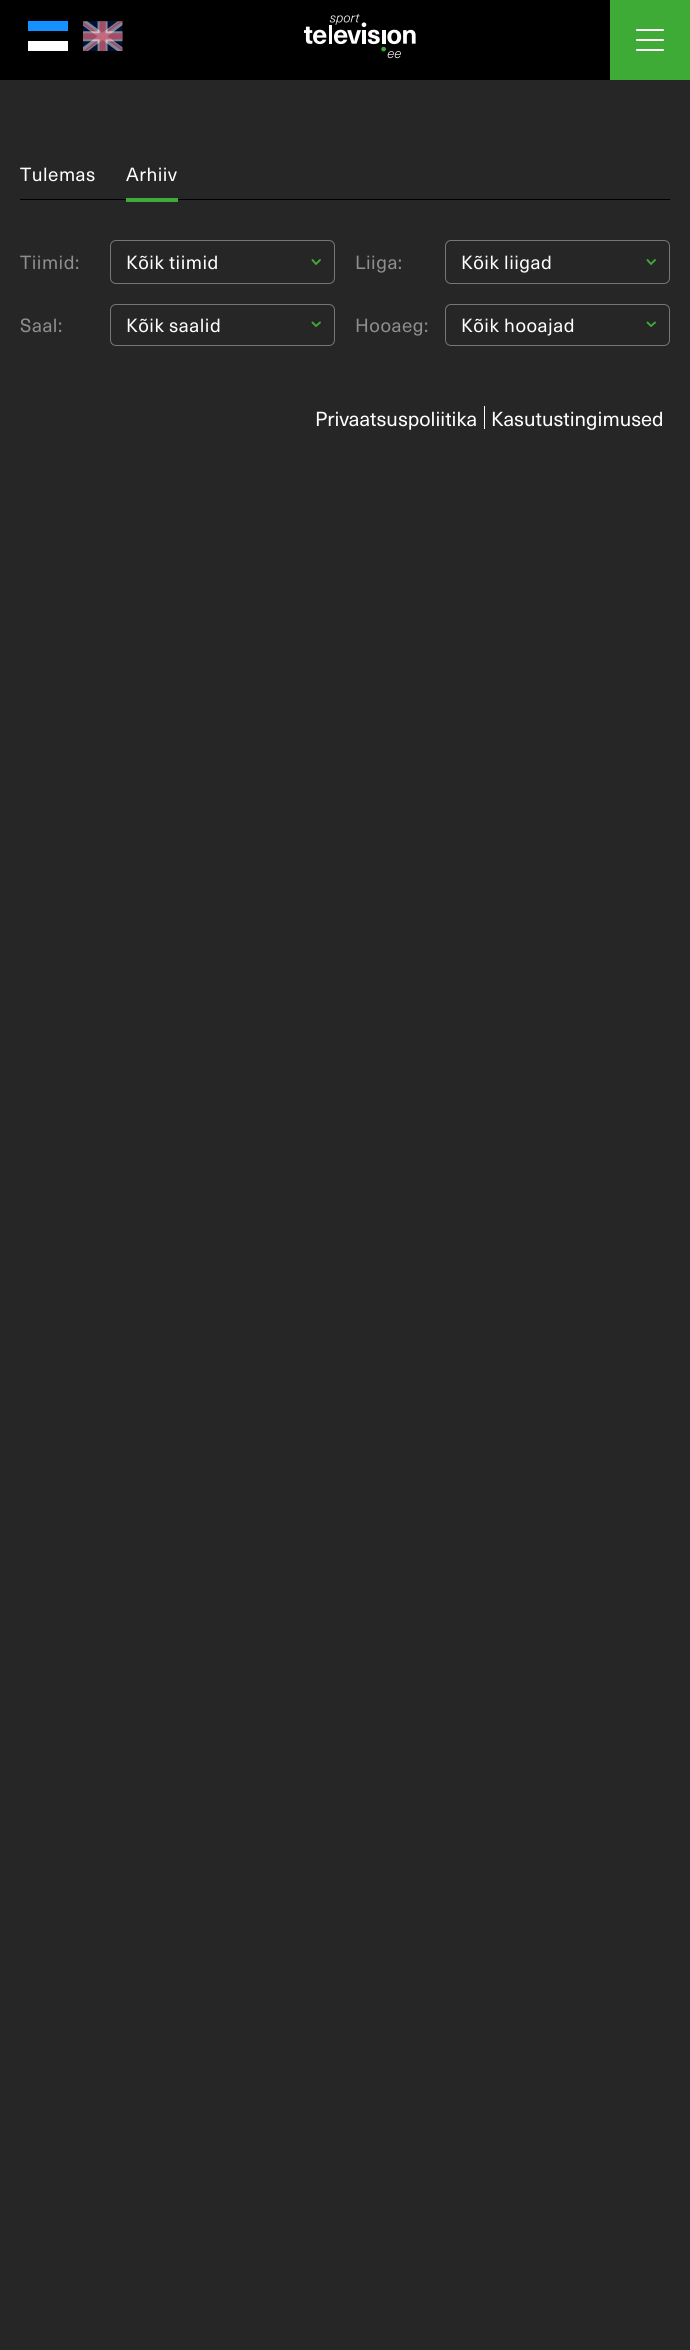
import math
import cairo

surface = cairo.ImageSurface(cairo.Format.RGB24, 690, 2350)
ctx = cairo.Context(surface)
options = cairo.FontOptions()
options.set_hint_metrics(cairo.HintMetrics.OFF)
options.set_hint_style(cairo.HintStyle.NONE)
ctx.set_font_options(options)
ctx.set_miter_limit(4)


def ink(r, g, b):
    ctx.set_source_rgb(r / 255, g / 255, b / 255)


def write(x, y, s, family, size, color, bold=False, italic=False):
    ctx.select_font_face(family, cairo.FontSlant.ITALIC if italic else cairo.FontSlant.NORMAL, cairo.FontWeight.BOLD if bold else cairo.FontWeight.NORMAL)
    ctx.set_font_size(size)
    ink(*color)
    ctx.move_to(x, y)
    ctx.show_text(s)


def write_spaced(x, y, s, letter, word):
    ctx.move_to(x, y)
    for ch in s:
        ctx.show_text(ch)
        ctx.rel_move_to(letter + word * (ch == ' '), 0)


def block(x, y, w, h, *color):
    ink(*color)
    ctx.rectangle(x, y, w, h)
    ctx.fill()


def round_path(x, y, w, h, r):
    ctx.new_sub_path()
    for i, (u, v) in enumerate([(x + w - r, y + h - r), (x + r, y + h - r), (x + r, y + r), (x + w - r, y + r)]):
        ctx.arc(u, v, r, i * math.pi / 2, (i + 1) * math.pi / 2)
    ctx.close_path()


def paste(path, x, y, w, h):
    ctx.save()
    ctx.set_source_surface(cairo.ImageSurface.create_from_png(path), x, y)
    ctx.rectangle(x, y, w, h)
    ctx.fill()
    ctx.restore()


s1 = dict(family="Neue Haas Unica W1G", size=20, color=(255, 255, 255))

ink(38, 38, 38)
ctx.paint()
block(0, 0, 610, 80, 0, 0, 0)
block(28, 21, 40, 10, 18, 145, 255)
block(28, 41, 40, 10, 255, 255, 255)
paste("pic1.png", 83, 21, 40, 30)
paste("pic2.png", 304, 14, 112, 45)
block(610, 0, 80, 80, 62, 171, 55)
ink(255, 255, 255)
round_path(636, 29, 28, 2, 1)
ctx.fill()
round_path(636, 39, 28, 2, 1)
ctx.fill()
round_path(636, 49, 28, 2, 1)
ctx.fill()
block(20, 199, 650, 1, 0, 0, 0)
ctx.select_font_face("Neue Haas Unica W1G")
ctx.set_font_size(18.75)
ink(255, 255, 255)
write_spaced(20, 181, "Tulemas", 0.5, 0)
block(126, 198, 52, 4, 62, 171, 55)
ink(255, 255, 255)
write_spaced(126, 181, "Arhiiv", 0.5, 0)
ink(142, 142, 142)
write_spaced(20, 269, "Tiimid:", 0.5, 0)
ctx.new_path()
ctx.move_to(312.5, 260)
ctx.line_to(316, 264)
ctx.line_to(320, 260)
ink(62, 171, 55)
ctx.set_line_width(1.9)
ctx.set_line_cap(cairo.LineCap.ROUND)
ctx.set_line_join(cairo.LineJoin.ROUND)
ctx.stroke()
round_path(110.5, 240.5, 224, 43, 5.5)
ink(118, 118, 118)
ctx.set_line_width(1)
ctx.set_line_cap(cairo.LineCap.BUTT)
ctx.set_line_join(cairo.LineJoin.MITER)
ctx.stroke()
ink(255, 255, 255)
write_spaced(126, 269, "Kõik tiimid", 0.5, 0)
ink(142, 142, 142)
write_spaced(355, 269, "Liiga:", 0.5, 0)
ctx.new_path()
ctx.move_to(647.5, 260)
ctx.line_to(651, 264)
ctx.line_to(655, 260)
ink(62, 171, 55)
ctx.set_line_width(1.9)
ctx.set_line_cap(cairo.LineCap.ROUND)
ctx.set_line_join(cairo.LineJoin.ROUND)
ctx.stroke()
round_path(445.5, 240.5, 224, 43, 5.5)
ink(118, 118, 118)
ctx.set_line_width(1)
ctx.set_line_cap(cairo.LineCap.BUTT)
ctx.set_line_join(cairo.LineJoin.MITER)
ctx.stroke()
ink(255, 255, 255)
write_spaced(461, 269, "Kõik liigad", 0.5, 0)
ink(142, 142, 142)
write_spaced(20, 332, "Saal:", 0.5, 0)
ctx.new_path()
ctx.move_to(312.5, 322.5)
ctx.line_to(316, 326)
ctx.line_to(320, 322.5)
ink(62, 171, 55)
ctx.set_line_width(1.9)
ctx.set_line_cap(cairo.LineCap.ROUND)
ctx.set_line_join(cairo.LineJoin.ROUND)
ctx.stroke()
round_path(110.5, 304.5, 224, 41, 5.5)
ink(118, 118, 118)
ctx.set_line_width(1)
ctx.set_line_cap(cairo.LineCap.BUTT)
ctx.set_line_join(cairo.LineJoin.MITER)
ctx.stroke()
ink(255, 255, 255)
write_spaced(126, 332, "Kõik saalid", 0.5, 0)
ink(142, 142, 142)
write_spaced(355, 332, "Hooaeg:", 0.5, 0)
ctx.new_path()
ctx.move_to(647.5, 322.5)
ctx.line_to(651, 326)
ctx.line_to(655, 322.5)
ink(62, 171, 55)
ctx.set_line_width(1.9)
ctx.set_line_cap(cairo.LineCap.ROUND)
ctx.set_line_join(cairo.LineJoin.ROUND)
ctx.stroke()
round_path(445.5, 304.5, 224, 41, 5.5)
ink(118, 118, 118)
ctx.set_line_width(1)
ctx.set_line_cap(cairo.LineCap.BUTT)
ctx.set_line_join(cairo.LineJoin.MITER)
ctx.stroke()
ink(255, 255, 255)
write_spaced(461, 332, "Kõik hooajad", 0.5, 0)
block(484, 406, 1, 23, 255, 255, 255)
write(315, 426, "Privaatsuspoliitika", **s1)
write(491, 426, "Kasutustingimused", **s1)
surface.write_to_png("screenshot.png")
